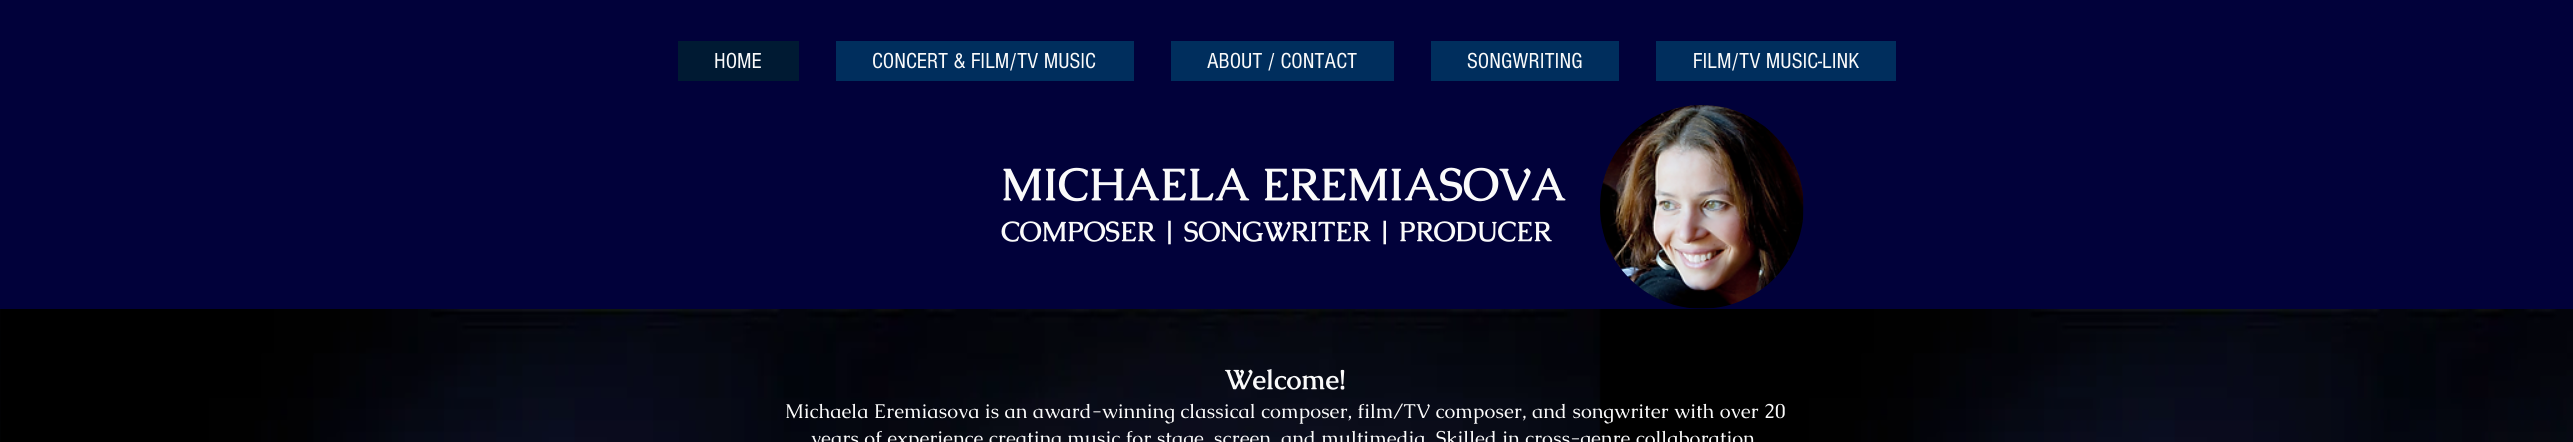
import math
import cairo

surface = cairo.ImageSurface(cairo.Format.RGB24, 2573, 442)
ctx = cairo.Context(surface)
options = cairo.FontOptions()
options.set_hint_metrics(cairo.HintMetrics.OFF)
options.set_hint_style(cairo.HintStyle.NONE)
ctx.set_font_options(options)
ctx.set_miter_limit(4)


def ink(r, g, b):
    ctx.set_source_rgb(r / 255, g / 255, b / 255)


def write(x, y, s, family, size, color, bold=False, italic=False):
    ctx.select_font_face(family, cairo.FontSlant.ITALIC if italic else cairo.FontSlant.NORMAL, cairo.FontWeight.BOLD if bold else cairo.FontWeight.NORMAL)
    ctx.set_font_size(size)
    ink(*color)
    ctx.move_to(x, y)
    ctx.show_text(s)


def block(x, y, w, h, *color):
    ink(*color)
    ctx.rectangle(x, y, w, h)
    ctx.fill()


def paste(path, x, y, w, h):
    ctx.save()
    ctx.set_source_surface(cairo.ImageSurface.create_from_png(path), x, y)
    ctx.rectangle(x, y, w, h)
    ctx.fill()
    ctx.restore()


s1 = dict(family="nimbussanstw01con", size=22.5, color=(250, 250, 250))
s2 = dict(family="Caudex", size=45, color=(250, 250, 250), bold=True)
s3 = dict(family="Caudex", size=27.5, color=(250, 250, 250), bold=True)
s4 = dict(family="Caudex", size=20, color=(250, 250, 250))

ink(1, 1, 58)
ctx.paint()
block(678, 41, 121, 40, 0, 26, 51)
write(714, 68, "HOME", **s1)
block(836, 41, 298, 40, 0, 46, 93)
write(872, 68, "CONCERT & FILM/TV MUSIC", **s1)
block(1171, 41, 223, 40, 0, 46, 93)
write(1207, 68, "ABOUT / CONTACT", **s1)
block(1431, 41, 188, 40, 0, 46, 93)
write(1467, 68, "SONGWRITING", **s1)
block(1656, 41, 240, 40, 0, 46, 93)
write(1693, 68, "FILM/TV MUSIC-LINK", **s1)
write(1001, 200, "MICHAELA EREMIASOVA", **s2)
paste("pic1.png", 1600, 105, 204, 204)
write(1001, 241, "COMPOSER | SONGWRITER | PRODUCER", **s3)
paste("pic2.png", 0, 309, 2573, 133)
write(1225, 389, "Welcome!", **s3)
write(785, 418, "Michaela Eremiasova is an award-winning classical composer, film/TV composer, and songwriter with over 20", **s4)
write(811, 445, "years of experience creating music for stage, screen, and multimedia. Skilled in cross-genre collaboration", **s4)
surface.write_to_png("screenshot.png")
